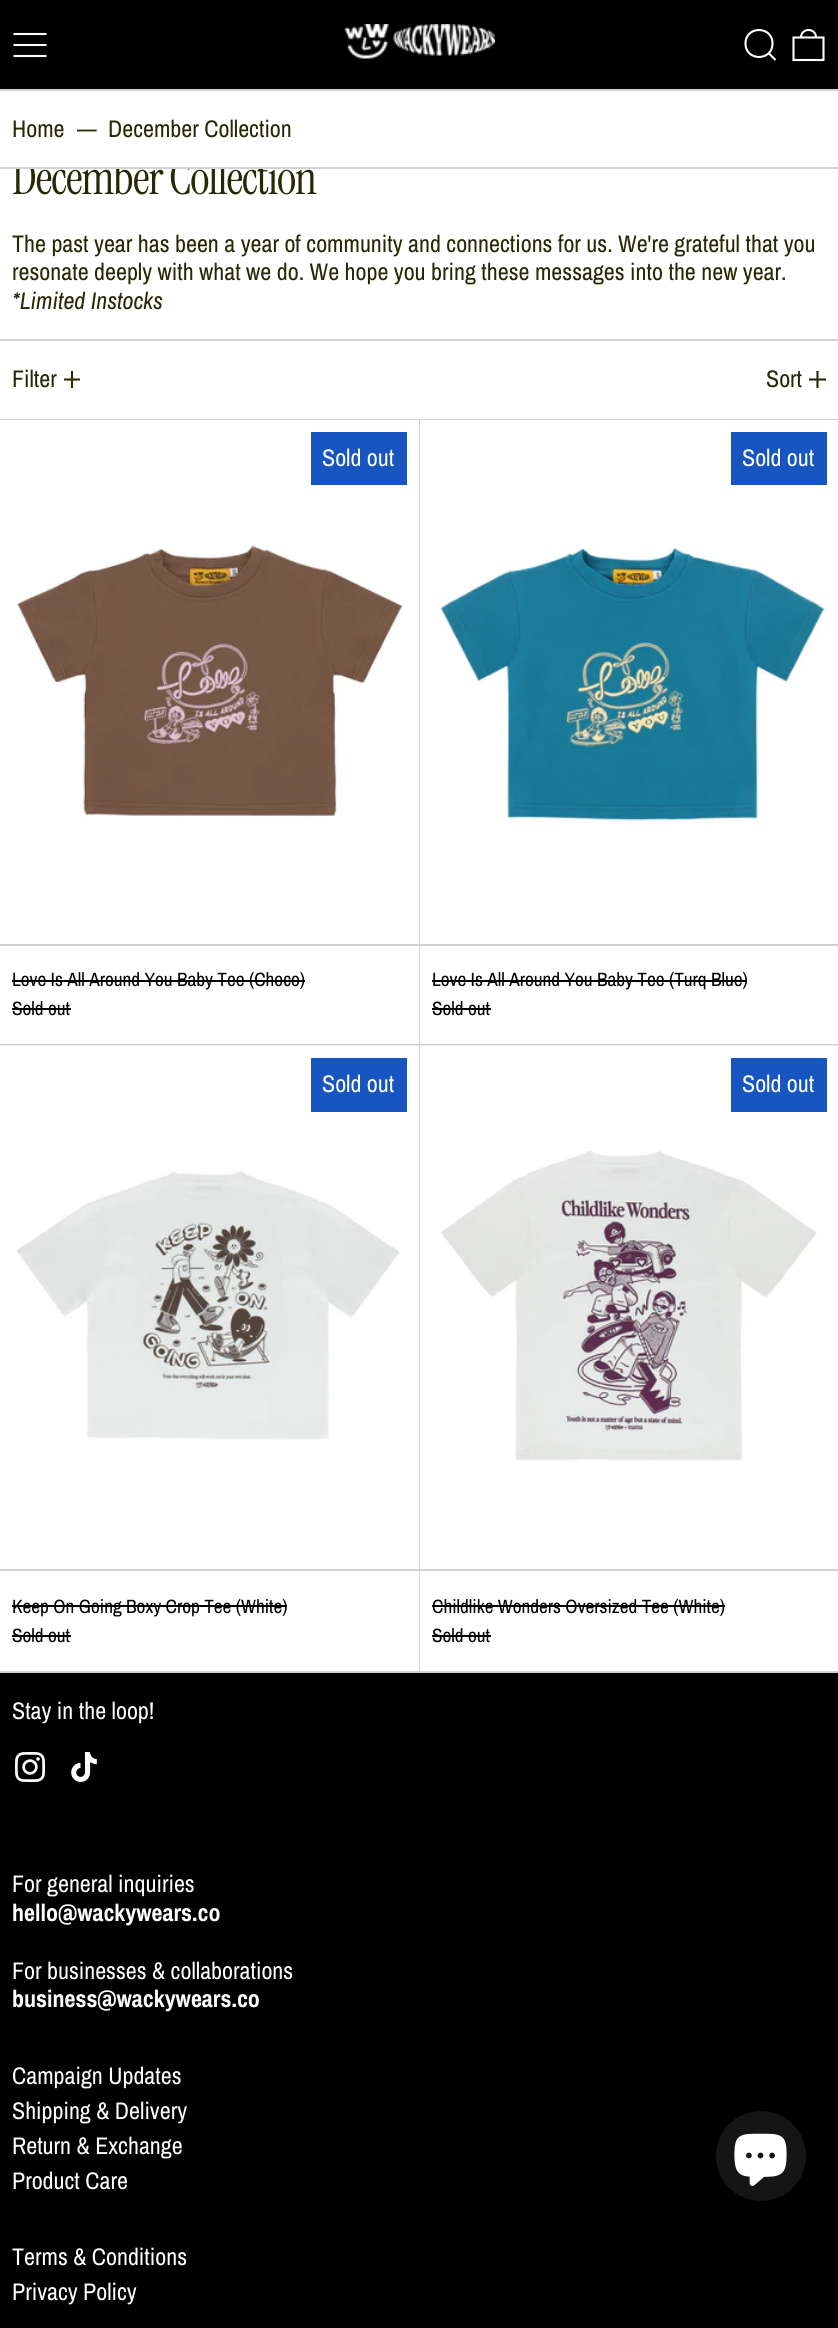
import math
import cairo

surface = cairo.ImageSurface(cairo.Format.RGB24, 838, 2328)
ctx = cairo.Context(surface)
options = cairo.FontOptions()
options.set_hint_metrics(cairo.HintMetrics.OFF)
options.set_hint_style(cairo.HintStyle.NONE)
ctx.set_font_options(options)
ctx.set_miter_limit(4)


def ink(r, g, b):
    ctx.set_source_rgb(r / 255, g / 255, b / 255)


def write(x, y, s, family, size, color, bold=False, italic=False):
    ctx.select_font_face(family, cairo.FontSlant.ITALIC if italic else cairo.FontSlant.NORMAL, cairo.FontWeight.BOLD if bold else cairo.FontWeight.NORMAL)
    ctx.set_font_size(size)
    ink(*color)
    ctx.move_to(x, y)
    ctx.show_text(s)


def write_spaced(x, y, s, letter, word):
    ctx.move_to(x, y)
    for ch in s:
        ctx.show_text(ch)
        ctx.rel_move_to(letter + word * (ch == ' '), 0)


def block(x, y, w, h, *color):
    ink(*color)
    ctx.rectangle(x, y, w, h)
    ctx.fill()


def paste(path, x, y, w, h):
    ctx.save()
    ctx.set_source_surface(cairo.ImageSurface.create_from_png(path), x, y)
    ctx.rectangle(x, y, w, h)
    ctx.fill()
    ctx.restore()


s1 = dict(family="Archivo Narrow", size=24, color=(39, 40, 4))
s2 = dict(family="Archivo Narrow", size=24, color=(39, 40, 4), italic=True)
s3 = dict(family="Archivo Narrow", size=24, color=(253, 255, 255))
s4 = dict(family="Archivo Narrow", size=19.25, color=(0, 0, 0))
s5 = dict(family="Archivo Narrow", size=24, color=(253, 255, 255), bold=True)

ink(255, 255, 255)
ctx.paint()
block(0, 0, 838, 89, 0, 0, 0)
block(0, 89, 838, 2, 210, 210, 210)
ctx.new_path()
ctx.move_to(13.5, 34)
ctx.line_to(46.5, 34)
ctx.move_to(13.5, 45)
ctx.line_to(46.5, 45)
ctx.move_to(13.5, 56)
ctx.line_to(46.5, 56)
ink(253, 255, 255)
ctx.set_line_width(2.1)
ctx.stroke()
paste("pic1.png", 344, 24, 151, 35)
ctx.new_path()
ctx.move_to(745.5, 43.5)
ctx.curve_to(745.5, 61.5, 772.5, 61.5, 772.5, 43.5)
ctx.curve_to(772.5, 25.5, 745.5, 25.5, 745.5, 43.5)
ctx.close_path()
ctx.move_to(768.5, 53)
ctx.line_to(775.5, 60)
ctx.stroke()
ctx.new_path()
ctx.move_to(793.5, 37.5)
ctx.line_to(823.5, 37.5)
ctx.line_to(823.5, 60)
ctx.line_to(793.5, 60)
ctx.close_path()
ctx.move_to(816, 37.5)
ctx.curve_to(816, 27.5, 801, 27.5, 801, 37.5)
ctx.stroke()
ctx.select_font_face("Instrument Serif")
ctx.set_font_size(47)
ink(39, 40, 4)
write_spaced(12, 194, "December Collection", -1.2, 0)
block(12, 159, 264, 8, 255, 255, 255)
block(0, 167, 838, 2, 210, 210, 210)
write(12, 137, "Home", **s1)
write(77, 137, "—", **s1)
write(108, 137, "December Collection", **s1)
block(0, 419, 838, 1254, 210, 210, 210)
block(0, 339, 838, 2, 210, 210, 210)
write(12, 252, "The past year has been a year of community and connections for us. We're grateful that you", **s1)
write(12, 280, "resonate deeply with what we do. We hope you bring these messages into the new year.", **s1)
write(12, 309, "*Limited Instocks", **s2)
write(12, 387, "Filter", **s1)
ctx.new_path()
ctx.move_to(72, 371)
ctx.line_to(72, 388)
ctx.move_to(64, 379.5)
ctx.line_to(80, 379.5)
ctx.stroke()
write(766, 387, "Sort", **s1)
ctx.new_path()
ctx.move_to(817.5, 371)
ctx.line_to(817.5, 388)
ctx.move_to(809, 379.5)
ctx.line_to(826, 379.5)
ctx.stroke()
block(0, 421, 419, 623, 255, 255, 255)
block(0, 944, 419, 2, 210, 210, 210)
paste("pic2.png", 0, 420, 419, 400)
block(311, 432, 96, 53, 23, 86, 193)
write(322, 466, "Sold out", **s3)
write(12, 986, "Love Is All Around You Baby Tee (Choco)", **s4)
block(12, 980, 293, 2, 0, 0, 0)
write(12, 1015, "Sold out", **s4)
block(12, 1008, 59, 2, 0, 0, 0)
block(420, 822, 418, 222, 255, 255, 255)
block(420, 944, 418, 2, 210, 210, 210)
paste("pic3.png", 420, 420, 418, 402)
block(731, 432, 96, 53, 23, 86, 193)
write(742, 466, "Sold out", **s3)
write(432, 986, "Love Is All Around You Baby Tee (Turq Blue)", **s4)
block(432, 980, 315, 2, 0, 0, 0)
write(432, 1015, "Sold out", **s4)
block(432, 1008, 59, 2, 0, 0, 0)
block(0, 1046, 419, 625, 255, 255, 255)
block(0, 1569, 419, 2, 210, 210, 210)
paste("pic4.png", 0, 1045, 419, 395)
block(311, 1058, 96, 54, 23, 86, 193)
write(322, 1092, "Sold out", **s3)
write(12, 1613, "Keep On Going Boxy Crop Tee (White)", **s4)
block(12, 1605, 275, 2, 0, 0, 0)
write(12, 1642, "Sold out", **s4)
block(12, 1635, 59, 2, 0, 0, 0)
block(420, 1461, 418, 210, 255, 255, 255)
block(420, 1569, 418, 2, 210, 210, 210)
paste("pic5.png", 420, 1045, 418, 416)
block(731, 1058, 96, 54, 23, 86, 193)
write(742, 1092, "Sold out", **s3)
write(432, 1613, "Childlike Wonders Oversized Tee (White)", **s4)
block(432, 1605, 293, 2, 0, 0, 0)
write(432, 1642, "Sold out", **s4)
block(432, 1635, 59, 2, 0, 0, 0)
block(0, 1673, 838, 655, 0, 0, 0)
write(12, 1719, "Stay in the loop!", **s3)
paste("pic6.png", 15, 1752, 30, 30)
paste("pic7.png", 71, 1752, 26, 30)
write(12, 1892, "For general inquiries", **s3)
write(12, 1921, "hello@wackywears.co", **s5)
write(12, 1979, "For businesses & collaborations", **s3)
write(12, 2007, "business@wackywears.co", **s5)
write(12, 2084, "Campaign Updates", **s3)
write(12, 2119, "Shipping & Delivery", **s3)
write(12, 2154, "Return & Exchange", **s3)
write(12, 2189, "Product Care", **s3)
write(12, 2265, "Terms & Conditions", **s3)
write(12, 2300, "Privacy Policy", **s3)
ink(21, 21, 21)
ctx.new_path()
ctx.arc(761, 2156, 45, 0, 2 * math.pi)
ctx.fill()
paste("pic8.png", 734, 2133, 53, 53)
surface.write_to_png("screenshot.png")
